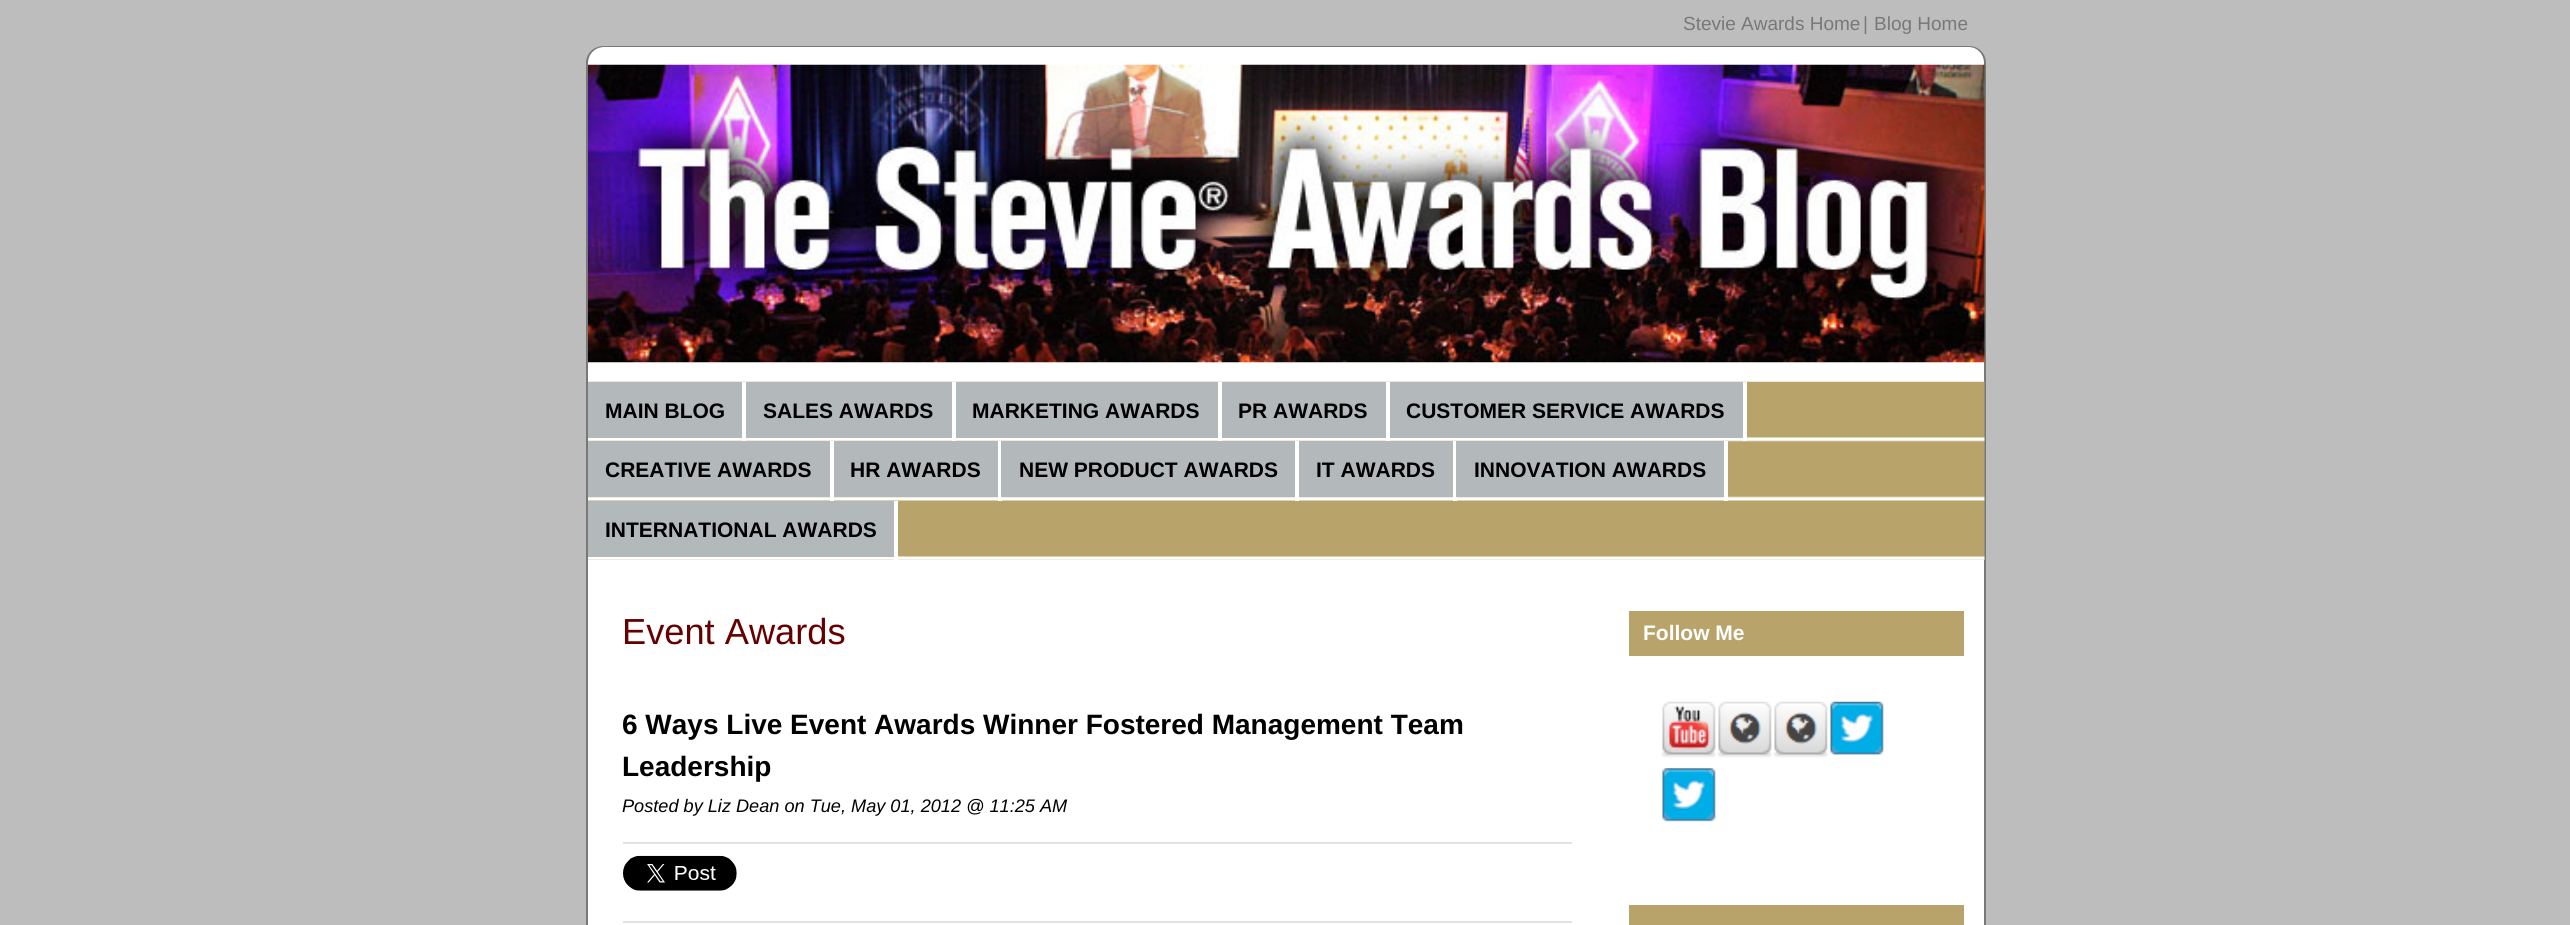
import math
import cairo

surface = cairo.ImageSurface(cairo.Format.RGB24, 2570, 925)
ctx = cairo.Context(surface)
options = cairo.FontOptions()
options.set_hint_metrics(cairo.HintMetrics.OFF)
options.set_hint_style(cairo.HintStyle.NONE)
ctx.set_font_options(options)
ctx.set_miter_limit(4)


def ink(r, g, b):
    ctx.set_source_rgb(r / 255, g / 255, b / 255)


def write(x, y, s, family, size, color, bold=False, italic=False):
    ctx.select_font_face(family, cairo.FontSlant.ITALIC if italic else cairo.FontSlant.NORMAL, cairo.FontWeight.BOLD if bold else cairo.FontWeight.NORMAL)
    ctx.set_font_size(size)
    ink(*color)
    ctx.move_to(x, y)
    ctx.show_text(s)


def block(x, y, w, h, *color):
    ink(*color)
    ctx.rectangle(x, y, w, h)
    ctx.fill()


def paste(path, x, y, w, h):
    ctx.save()
    ctx.set_source_surface(cairo.ImageSurface.create_from_png(path), x, y)
    ctx.rectangle(x, y, w, h)
    ctx.fill()
    ctx.restore()


s1 = dict(family="Liberation Sans", size=19, color=(120, 120, 120))
s2 = dict(family="Liberation Sans", size=21, color=(0, 0, 0), bold=True)
s3 = dict(family="Liberation Sans", size=36.25, color=(102, 0, 0))
s4 = dict(family="Liberation Sans", size=28, color=(0, 0, 0), bold=True)
s5 = dict(family="Liberation Sans", size=18.15, color=(0, 0, 0), italic=True)
s6 = dict(family="Liberation Sans", size=21, color=(255, 255, 255), bold=True)

ink(189, 189, 189)
ctx.paint()
write(1683, 30, "Stevie Awards Home", **s1)
write(1863, 30, "|", **s1)
write(1874, 30, "Blog Home", **s1)
ink(255, 255, 255)
ctx.new_path()
ctx.move_to(604, 47)
ctx.line_to(1969, 47)
ctx.curve_to(1978, 47, 1985, 54, 1985, 63)
ctx.line_to(1985, 560)
ctx.line_to(588, 560)
ctx.line_to(588, 63)
ctx.curve_to(588, 54, 595, 47, 604, 47)
ctx.close_path()
ctx.fill()
ink(120, 120, 120)
ctx.set_fill_rule(cairo.FillRule.EVEN_ODD)
ctx.new_path()
ctx.move_to(604, 46)
ctx.line_to(1969, 46)
ctx.curve_to(1978, 46, 1986, 53, 1986, 63)
ctx.line_to(1986, 560)
ctx.line_to(586, 560)
ctx.line_to(586, 63)
ctx.curve_to(586, 53, 594, 46, 604, 46)
ctx.close_path()
ctx.move_to(604, 47)
ctx.line_to(1969, 47)
ctx.curve_to(1977, 47, 1984, 54, 1984, 63)
ctx.line_to(1984, 560)
ctx.line_to(588, 560)
ctx.line_to(588, 63)
ctx.curve_to(588, 54, 595, 47, 604, 47)
ctx.close_path()
ctx.fill()
paste("pic1.png", 588, 64, 1397, 299)
paste("pic2.png", 588, 381, 1397, 179)
block(742, 382, 4, 59, 255, 255, 255)
block(588, 382, 154, 56, 179, 184, 187)
write(605, 418, "MAIN BLOG", **s2)
block(952, 382, 4, 59, 255, 255, 255)
block(746, 382, 206, 56, 179, 184, 187)
write(763, 418, "SALES AWARDS", **s2)
block(1218, 382, 4, 59, 255, 255, 255)
block(956, 382, 262, 56, 179, 184, 187)
write(972, 418, "MARKETING AWARDS", **s2)
block(1386, 382, 4, 59, 255, 255, 255)
block(1222, 382, 164, 56, 179, 184, 187)
write(1238, 418, "PR AWARDS", **s2)
block(1743, 382, 4, 59, 255, 255, 255)
block(1390, 382, 353, 56, 179, 184, 187)
write(1406, 418, "CUSTOMER SERVICE AWARDS", **s2)
block(830, 441, 4, 60, 255, 255, 255)
block(588, 441, 242, 56, 179, 184, 187)
write(605, 477, "CREATIVE AWARDS", **s2)
block(998, 441, 4, 60, 255, 255, 255)
block(834, 441, 164, 56, 179, 184, 187)
write(850, 477, "HR AWARDS", **s2)
block(1295, 441, 4, 60, 255, 255, 255)
block(1001, 441, 294, 56, 179, 184, 187)
write(1019, 477, "NEW PRODUCT AWARDS", **s2)
block(1453, 441, 4, 60, 255, 255, 255)
block(1299, 441, 154, 56, 179, 184, 187)
write(1316, 477, "IT AWARDS", **s2)
block(1724, 441, 4, 60, 255, 255, 255)
block(1456, 441, 268, 56, 179, 184, 187)
write(1474, 477, "INNOVATION AWARDS", **s2)
block(894, 501, 4, 59, 255, 255, 255)
block(588, 501, 306, 56, 179, 184, 187)
write(605, 537, "INTERNATIONAL AWARDS", **s2)
block(588, 560, 1396, 365, 255, 255, 255)
ink(120, 120, 120)
ctx.new_path()
ctx.move_to(586, 560)
ctx.line_to(1986, 560)
ctx.line_to(1986, 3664)
ctx.curve_to(1986, 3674, 1978, 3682, 1969, 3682)
ctx.line_to(604, 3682)
ctx.curve_to(594, 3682, 586, 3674, 586, 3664)
ctx.close_path()
ctx.move_to(588, 560)
ctx.line_to(1984, 560)
ctx.line_to(1984, 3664)
ctx.curve_to(1984, 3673, 1977, 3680, 1969, 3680)
ctx.line_to(604, 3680)
ctx.curve_to(595, 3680, 588, 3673, 588, 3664)
ctx.close_path()
ctx.fill()
write(622, 644, "Event Awards", **s3)
write(622, 734, "6 Ways Live Event Awards Winner Fostered Management Team", **s4)
write(622, 776, "Leadership", **s4)
write(622, 812, "Posted by Liz Dean on Tue, May 01, 2012 @ 11:25 AM", **s5)
block(623, 842, 949, 2, 226, 226, 226)
block(623, 921, 949, 2, 226, 226, 226)
paste("pic3.png", 623, 855, 114, 36)
block(1629, 611, 335, 45, 184, 163, 106)
write(1643, 640, "Follow Me", **s6)
paste("pic4.png", 1661, 701, 55, 57)
paste("pic5.png", 1717, 701, 55, 57)
paste("pic5.png", 1773, 701, 55, 57)
paste("pic6.png", 1830, 701, 54, 54)
paste("pic7.png", 1662, 768, 54, 54)
block(1629, 905, 335, 20, 184, 163, 106)
surface.write_to_png("screenshot.png")
